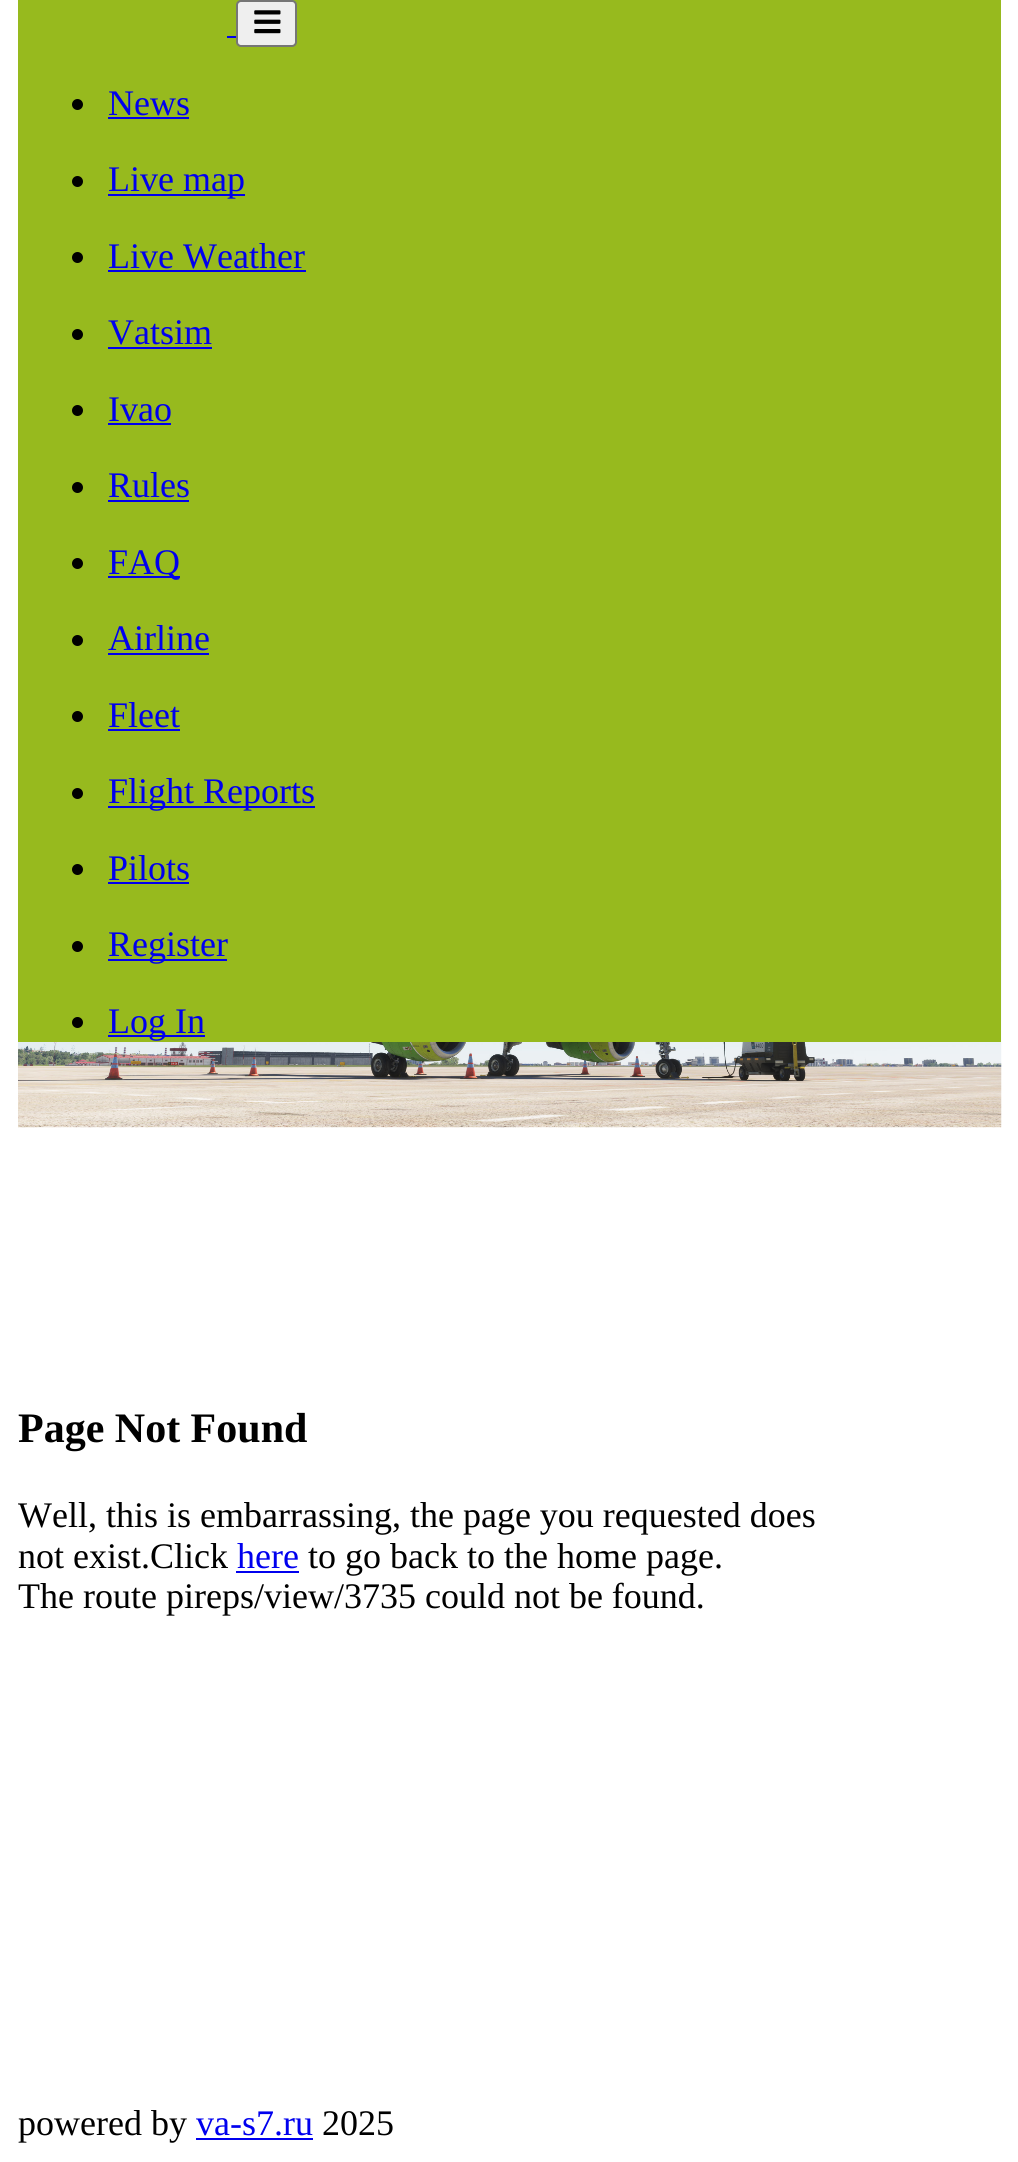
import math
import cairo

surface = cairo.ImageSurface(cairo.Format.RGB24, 1018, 2162)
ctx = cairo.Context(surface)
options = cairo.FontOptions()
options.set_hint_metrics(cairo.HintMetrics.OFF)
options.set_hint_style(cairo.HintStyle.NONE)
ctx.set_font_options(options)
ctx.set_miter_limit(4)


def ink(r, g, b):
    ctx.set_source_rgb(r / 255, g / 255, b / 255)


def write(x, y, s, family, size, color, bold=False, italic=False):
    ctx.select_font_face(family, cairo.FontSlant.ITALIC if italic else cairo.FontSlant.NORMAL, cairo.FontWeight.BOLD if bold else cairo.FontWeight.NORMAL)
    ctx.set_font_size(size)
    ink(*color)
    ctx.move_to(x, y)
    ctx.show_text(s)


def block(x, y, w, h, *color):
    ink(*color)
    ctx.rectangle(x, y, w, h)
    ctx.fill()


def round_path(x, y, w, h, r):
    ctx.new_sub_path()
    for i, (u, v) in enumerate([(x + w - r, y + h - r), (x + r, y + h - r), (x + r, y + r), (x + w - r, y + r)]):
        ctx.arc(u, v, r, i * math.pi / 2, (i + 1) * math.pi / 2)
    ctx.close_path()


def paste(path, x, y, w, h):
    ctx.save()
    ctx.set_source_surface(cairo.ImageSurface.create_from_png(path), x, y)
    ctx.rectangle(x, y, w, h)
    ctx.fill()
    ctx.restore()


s1 = dict(family="Liberation Serif", size=36, color=(0, 0, 238))
s2 = dict(family="Liberation Serif", size=42, color=(0, 0, 0), bold=True)
s3 = dict(family="Liberation Serif", size=36, color=(0, 0, 0))

ink(255, 255, 255)
ctx.paint()
paste("pic2.png", 18, 879, 984, 249)
block(18, 0, 983, 1042, 151, 186, 30)
block(227, 36, 9, 2, 0, 0, 238)
ink(239, 239, 239)
round_path(237, 1, 59, 45, 4)
ctx.fill_preserve()
ink(118, 118, 118)
ctx.stroke()
paste("pic1.png", 254, 10, 27, 24)
ink(0, 0, 0)
ctx.arc(77.5, 104.5, 5.5, 0, 2 * math.pi)
ctx.fill()
write(108, 115, "News", **s1)
block(108, 117, 81, 2, 0, 0, 238)
ink(0, 0, 0)
ctx.new_path()
ctx.arc(77.5, 181.5, 5.5, 0, 2 * math.pi)
ctx.fill()
block(108, 194, 137, 2, 0, 0, 238)
write(108, 191, "Live map", **s1)
ink(0, 0, 0)
ctx.new_path()
ctx.arc(77.5, 257.5, 5.5, 0, 2 * math.pi)
ctx.fill()
write(108, 268, "Live Weather", **s1)
block(108, 270, 198, 2, 0, 0, 238)
ink(0, 0, 0)
ctx.new_path()
ctx.arc(77.5, 334.5, 5.5, 0, 2 * math.pi)
ctx.fill()
write(108, 344, "Vatsim", **s1)
block(108, 347, 104, 2, 0, 0, 238)
ink(0, 0, 0)
ctx.new_path()
ctx.arc(77.5, 410.5, 5.5, 0, 2 * math.pi)
ctx.fill()
write(108, 421, "Ivao", **s1)
block(108, 423, 63, 2, 0, 0, 238)
ink(0, 0, 0)
ctx.new_path()
ctx.arc(77.5, 487.5, 5.5, 0, 2 * math.pi)
ctx.fill()
write(108, 497, "Rules", **s1)
block(108, 500, 81, 2, 0, 0, 238)
ink(0, 0, 0)
ctx.new_path()
ctx.arc(77.5, 563.5, 5.5, 0, 2 * math.pi)
ctx.fill()
block(108, 576, 72, 2, 0, 0, 238)
write(108, 574, "FAQ", **s1)
ink(0, 0, 0)
ctx.new_path()
ctx.arc(77.5, 640.5, 5.5, 0, 2 * math.pi)
ctx.fill()
write(108, 650, "Airline", **s1)
block(108, 653, 101, 2, 0, 0, 238)
ink(0, 0, 0)
ctx.new_path()
ctx.arc(77.5, 716.5, 5.5, 0, 2 * math.pi)
ctx.fill()
write(108, 727, "Fleet", **s1)
block(108, 729, 72, 2, 0, 0, 238)
ink(0, 0, 0)
ctx.new_path()
ctx.arc(77.5, 793.5, 5.5, 0, 2 * math.pi)
ctx.fill()
block(108, 806, 207, 2, 0, 0, 238)
write(108, 803, "Flight Reports", **s1)
ink(0, 0, 0)
ctx.new_path()
ctx.arc(77.5, 869.5, 5.5, 0, 2 * math.pi)
ctx.fill()
write(108, 880, "Pilots", **s1)
block(108, 882, 81, 2, 0, 0, 238)
ink(0, 0, 0)
ctx.new_path()
ctx.arc(77.5, 946.5, 5.5, 0, 2 * math.pi)
ctx.fill()
block(108, 959, 119, 2, 0, 0, 238)
write(108, 956, "Register", **s1)
ink(0, 0, 0)
ctx.new_path()
ctx.arc(77.5, 1022.5, 5.5, 0, 2 * math.pi)
ctx.fill()
block(108, 1035, 97, 2, 0, 0, 238)
write(108, 1033, "Log In", **s1)
write(18, 1442, "Page Not Found", **s2)
write(18, 1527, "Well, this is embarrassing, the page you requested does", **s3)
write(18, 1568, "not exist.Click", **s3)
write(237, 1568, "here", **s1)
block(236, 1571, 63, 2, 0, 0, 238)
write(308, 1568, "to go back to the home page.", **s3)
write(18, 1608, "The route pireps/view/3735 could not be found.", **s3)
write(18, 2135, "powered by", **s3)
write(196, 2135, "va-s7.ru", **s1)
block(196, 2138, 117, 2, 0, 0, 238)
write(322, 2135, "2025", **s3)
surface.write_to_png("screenshot.png")
